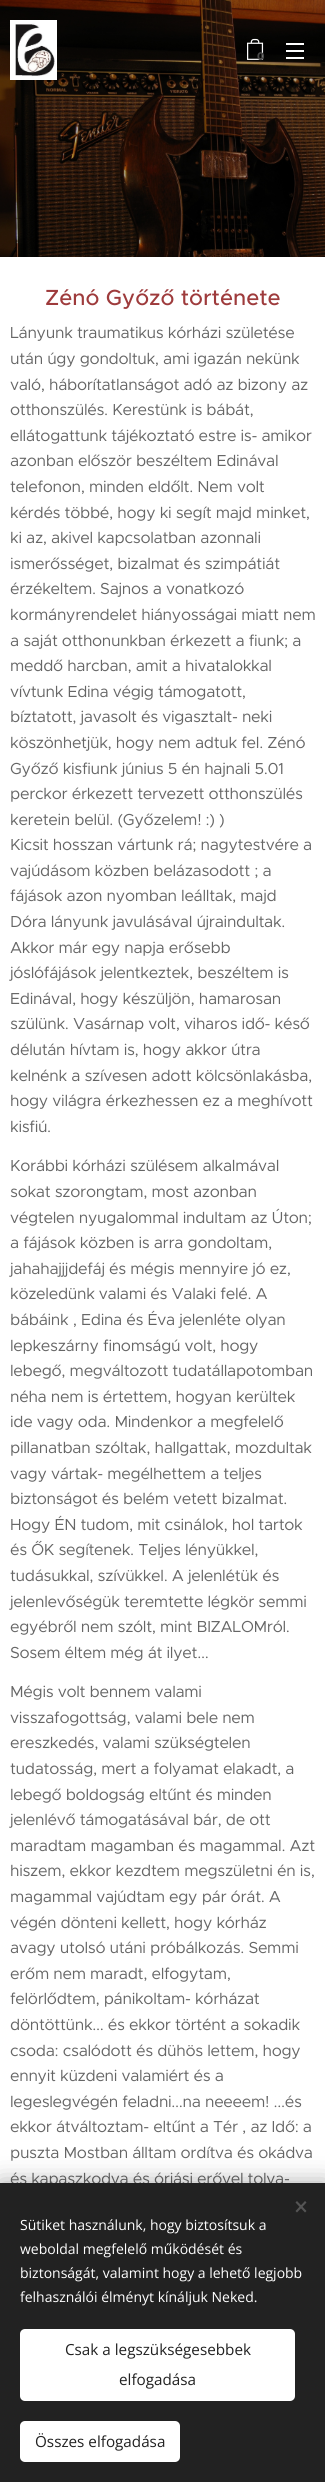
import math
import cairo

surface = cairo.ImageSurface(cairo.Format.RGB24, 325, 2482)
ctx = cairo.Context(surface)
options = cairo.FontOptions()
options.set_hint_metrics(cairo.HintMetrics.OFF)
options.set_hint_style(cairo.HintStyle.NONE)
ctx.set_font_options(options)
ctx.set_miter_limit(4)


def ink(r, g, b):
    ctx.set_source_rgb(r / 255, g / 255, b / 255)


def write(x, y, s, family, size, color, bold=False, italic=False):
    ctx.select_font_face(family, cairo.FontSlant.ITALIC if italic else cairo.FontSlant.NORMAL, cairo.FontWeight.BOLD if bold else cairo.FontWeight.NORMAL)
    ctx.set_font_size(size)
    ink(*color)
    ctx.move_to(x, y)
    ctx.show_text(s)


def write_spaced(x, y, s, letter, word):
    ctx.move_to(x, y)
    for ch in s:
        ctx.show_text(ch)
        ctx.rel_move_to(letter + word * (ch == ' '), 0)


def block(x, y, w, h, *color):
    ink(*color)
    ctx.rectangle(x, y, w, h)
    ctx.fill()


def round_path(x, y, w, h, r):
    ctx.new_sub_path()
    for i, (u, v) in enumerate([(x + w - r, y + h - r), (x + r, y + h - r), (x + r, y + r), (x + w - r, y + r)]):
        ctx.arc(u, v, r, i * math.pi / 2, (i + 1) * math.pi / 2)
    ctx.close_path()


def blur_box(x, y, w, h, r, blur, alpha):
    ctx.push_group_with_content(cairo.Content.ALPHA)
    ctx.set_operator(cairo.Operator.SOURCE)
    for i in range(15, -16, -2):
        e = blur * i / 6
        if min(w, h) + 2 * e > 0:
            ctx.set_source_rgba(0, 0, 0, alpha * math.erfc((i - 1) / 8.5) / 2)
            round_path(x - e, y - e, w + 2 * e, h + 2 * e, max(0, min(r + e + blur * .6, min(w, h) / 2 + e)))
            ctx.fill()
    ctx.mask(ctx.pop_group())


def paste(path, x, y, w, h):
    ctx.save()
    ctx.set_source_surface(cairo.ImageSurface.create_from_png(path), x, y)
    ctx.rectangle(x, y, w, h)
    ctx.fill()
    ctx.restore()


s1 = dict(family="Montserrat", size=11, color=(74, 74, 74), bold=True)
s2 = dict(family="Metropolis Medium", size=22, color=(158, 59, 60))
s3 = dict(family="Open Sans", size=14, color=(255, 255, 255))
s4 = dict(family="Open Sans", size=15.25, color=(34, 34, 34))

ink(255, 255, 255)
ctx.paint()
paste("pic3.png", 0, 0, 325, 257)
paste("pic1.png", 10, 20, 47, 60)
paste("pic2.png", 247, 38, 17, 22)
write(257, 60, "0", **s1)
block(286, 50, 18, 2, 255, 255, 255)
block(286, 43, 18, 2, 255, 255, 255)
block(286, 57, 18, 2, 255, 255, 255)
write(45, 305, "Zénó Győző története", **s2)
ctx.select_font_face("Metropolis")
ctx.set_font_size(16)
ink(102, 102, 102)
write_spaced(10, 338, "Lányunk traumatikus kórházi születése", -0.3, 0)
write_spaced(10, 364, "után úgy gondoltuk, ami igazán nekünk", -0.3, 0)
write_spaced(10, 390, "való, háborítatlanságot adó az bizony az", -0.3, 0)
write_spaced(10, 415, "otthonszülés. Kerestünk is bábát,", -0.3, 0)
write_spaced(10, 441, "ellátogattunk tájékoztató estre is- amikor", -0.3, 0)
write_spaced(10, 466, "azonban először beszéltem Edinával", -0.3, 0)
write_spaced(10, 492, "telefonon, minden eldőlt. Nem volt", -0.3, 0)
write_spaced(10, 518, "kérdés többé, hogy ki segít majd minket,", -0.3, 0)
write_spaced(10, 543, "ki az, akivel kapcsolatban azonnali", -0.3, 0)
write_spaced(10, 569, "ismerősséget, bizalmat és szimpátiát", -0.3, 0)
write_spaced(10, 594, "érzékeltem. Sajnos a vonatkozó", -0.3, 0)
write_spaced(10, 620, "kormányrendelet hiányosságai miatt nem", -0.3, 0)
write_spaced(10, 646, "a saját otthonunkban érkezett a fiunk; a", -0.3, 0)
write_spaced(10, 671, "meddő harcban, amit a hivatalokkal", -0.3, 0)
write_spaced(10, 697, "vívtunk Edina végig támogatott,", -0.3, 0)
write_spaced(10, 722, "bíztatott, javasolt és vigasztalt- neki", -0.3, 0)
write_spaced(10, 748, "köszönhetjük, hogy nem adtuk fel. Zénó", -0.3, 0)
write_spaced(10, 774, "Győző kisfiunk június 5 én hajnali 5.01", -0.3, 0)
write_spaced(10, 799, "perckor érkezett tervezett otthonszülés", -0.3, 0)
write_spaced(10, 825, "keretein belül. (Győzelem! :) )", -0.3, 0)
write_spaced(10, 850, "Kicsit hosszan vártunk rá; nagytestvére a", -0.3, 0)
write_spaced(10, 876, "vajúdásom közben belázasodott ; a", -0.3, 0)
write_spaced(10, 901, "fájások azon nyomban leálltak, majd", -0.3, 0)
write_spaced(10, 927, "Dóra lányunk javulásával újraindultak.", -0.3, 0)
write_spaced(10, 953, "Akkor már egy napja erősebb", -0.3, 0)
write_spaced(10, 978, "jóslófájások jelentkeztek, beszéltem is", -0.3, 0)
write_spaced(10, 1004, "Edinával, hogy készüljön, hamarosan", -0.3, 0)
write_spaced(10, 1029, "szülünk. Vasárnap volt, viharos idő- késő", -0.3, 0)
write_spaced(10, 1055, "délután hívtam is, hogy akkor útra", -0.3, 0)
write_spaced(10, 1081, "kelnénk a szívesen adott kölcsönlakásba,", -0.3, 0)
write_spaced(10, 1106, "hogy világra érkezhessen ez a meghívott", -0.3, 0)
write_spaced(10, 1132, "kisfiú.", -0.3, 0)
write_spaced(10, 1171, "Korábbi kórházi szülésem alkalmával", -0.3, 0)
write_spaced(10, 1197, "sokat szorongtam, most azonban", -0.3, 0)
write_spaced(10, 1223, "végtelen nyugalommal indultam az Úton;", -0.3, 0)
write_spaced(10, 1248, "a fájások közben is arra gondoltam,", -0.3, 0)
write_spaced(10, 1274, "jahahajjjdefáj és mégis mennyire jó ez,", -0.3, 0)
write_spaced(10, 1299, "közeledünk valami és Valaki felé. A", -0.3, 0)
write_spaced(10, 1325, "bábáink , Edina és Éva jelenléte olyan", -0.3, 0)
write_spaced(10, 1351, "lepkeszárny finomságú volt, hogy", -0.3, 0)
write_spaced(10, 1376, "lebegő, megváltozott tudatállapotomban", -0.3, 0)
write_spaced(10, 1402, "néha nem is értettem, hogyan kerültek", -0.3, 0)
write_spaced(10, 1427, "ide vagy oda. Mindenkor a megfelelő", -0.3, 0)
write_spaced(10, 1453, "pillanatban szóltak, hallgattak, mozdultak", -0.3, 0)
write_spaced(10, 1479, "vagy vártak- megélhettem a teljes", -0.3, 0)
write_spaced(10, 1504, "biztonságot és belém vetett bizalmat.", -0.3, 0)
write_spaced(10, 1530, "Hogy ÉN tudom, mit csinálok, hol tartok", -0.3, 0)
write_spaced(10, 1555, "és ŐK segítenek. Teljes lényükkel,", -0.3, 0)
write_spaced(10, 1581, "tudásukkal, szívükkel. A jelenlétük és", -0.3, 0)
write_spaced(10, 1607, "jelenlevőségük teremtette légkör semmi", -0.3, 0)
write_spaced(10, 1632, "egyébről nem szólt, mint BIZALOMról.", -0.3, 0)
write_spaced(10, 1658, "Sosem éltem még át ilyet...", -0.3, 0)
write_spaced(10, 1697, "Mégis volt bennem valami", -0.3, 0)
write_spaced(10, 1723, "visszafogottság, valami bele nem", -0.3, 0)
write_spaced(10, 1748, "ereszkedés, valami szükségtelen", -0.3, 0)
write_spaced(10, 1774, "tudatosság, mert a folyamat elakadt, a", -0.3, 0)
write_spaced(10, 1800, "lebegő boldogság eltűnt és minden", -0.3, 0)
write_spaced(10, 1825, "jelenlévő támogatásával bár, de ott", -0.3, 0)
write_spaced(10, 1851, "maradtam magamban és magammal. Azt", -0.3, 0)
write_spaced(10, 1876, "hiszem, ekkor kezdtem megszületni én is,", -0.3, 0)
write_spaced(10, 1902, "magammal vajúdtam egy pár órát. A", -0.3, 0)
write_spaced(10, 1928, "végén dönteni kellett, hogy kórház", -0.3, 0)
write_spaced(10, 1953, "avagy utolsó utáni próbálkozás. Semmi", -0.3, 0)
write_spaced(10, 1979, "erőm nem maradt, elfogytam,", -0.3, 0)
write_spaced(10, 2004, "felörlődtem, pánikoltam- kórházat", -0.3, 0)
write_spaced(10, 2030, "döntöttünk... és ekkor történt a sokadik", -0.3, 0)
write_spaced(10, 2056, "csoda: csalódott és dühös lettem, hogy", -0.3, 0)
write_spaced(10, 2081, "ennyit küzdeni valamiért és a", -0.3, 0)
write_spaced(10, 2107, "legeslegvégén feladni...na neeeem! ...és", -0.3, 0)
write_spaced(10, 2132, "ekkor átváltoztam- eltűnt a Tér , az Idő: a", -0.3, 0)
write_spaced(10, 2158, "puszta Mostban álltam ordítva és okádva", -0.3, 0)
write_spaced(10, 2184, "és kapaszkodva és óriási erővel tolva-", -0.3, 0)
ink(0, 0, 0)
blur_box(0, 2183, 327, 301, 0, 12.5, 0.33)
block(0, 2183, 325, 299, 34, 34, 34)
ink(85, 85, 85)
ctx.new_path()
ctx.move_to(295.5, 2211)
ctx.line_to(305, 2201)
ctx.line_to(306.5, 2202.5)
ctx.line_to(297, 2212.5)
ctx.close_path()
ctx.fill()
ctx.new_path()
ctx.move_to(297, 2201)
ctx.line_to(306.5, 2211)
ctx.line_to(305, 2212.5)
ctx.line_to(295.5, 2202.5)
ctx.close_path()
ctx.fill()
write(20, 2230, "Sütiket használunk, hogy biztosítsuk a", **s3)
write(20, 2254, "weboldal megfelelő működését és", **s3)
write(20, 2278, "biztonságát, valamint hogy a lehető legjobb", **s3)
write(20, 2302, "felhasználói élményt kínáljuk Neked.", **s3)
round_path(20, 2329, 275, 72, 5)
ctx.fill()
write(65, 2355, "Csak a legszükségesebbek", **s4)
write(119, 2385, "elfogadása", **s4)
ink(255, 255, 255)
round_path(20, 2421, 160, 41, 5)
ctx.fill()
write(35, 2447, "Összes elfogadása", **s4)
surface.write_to_png("screenshot.png")
